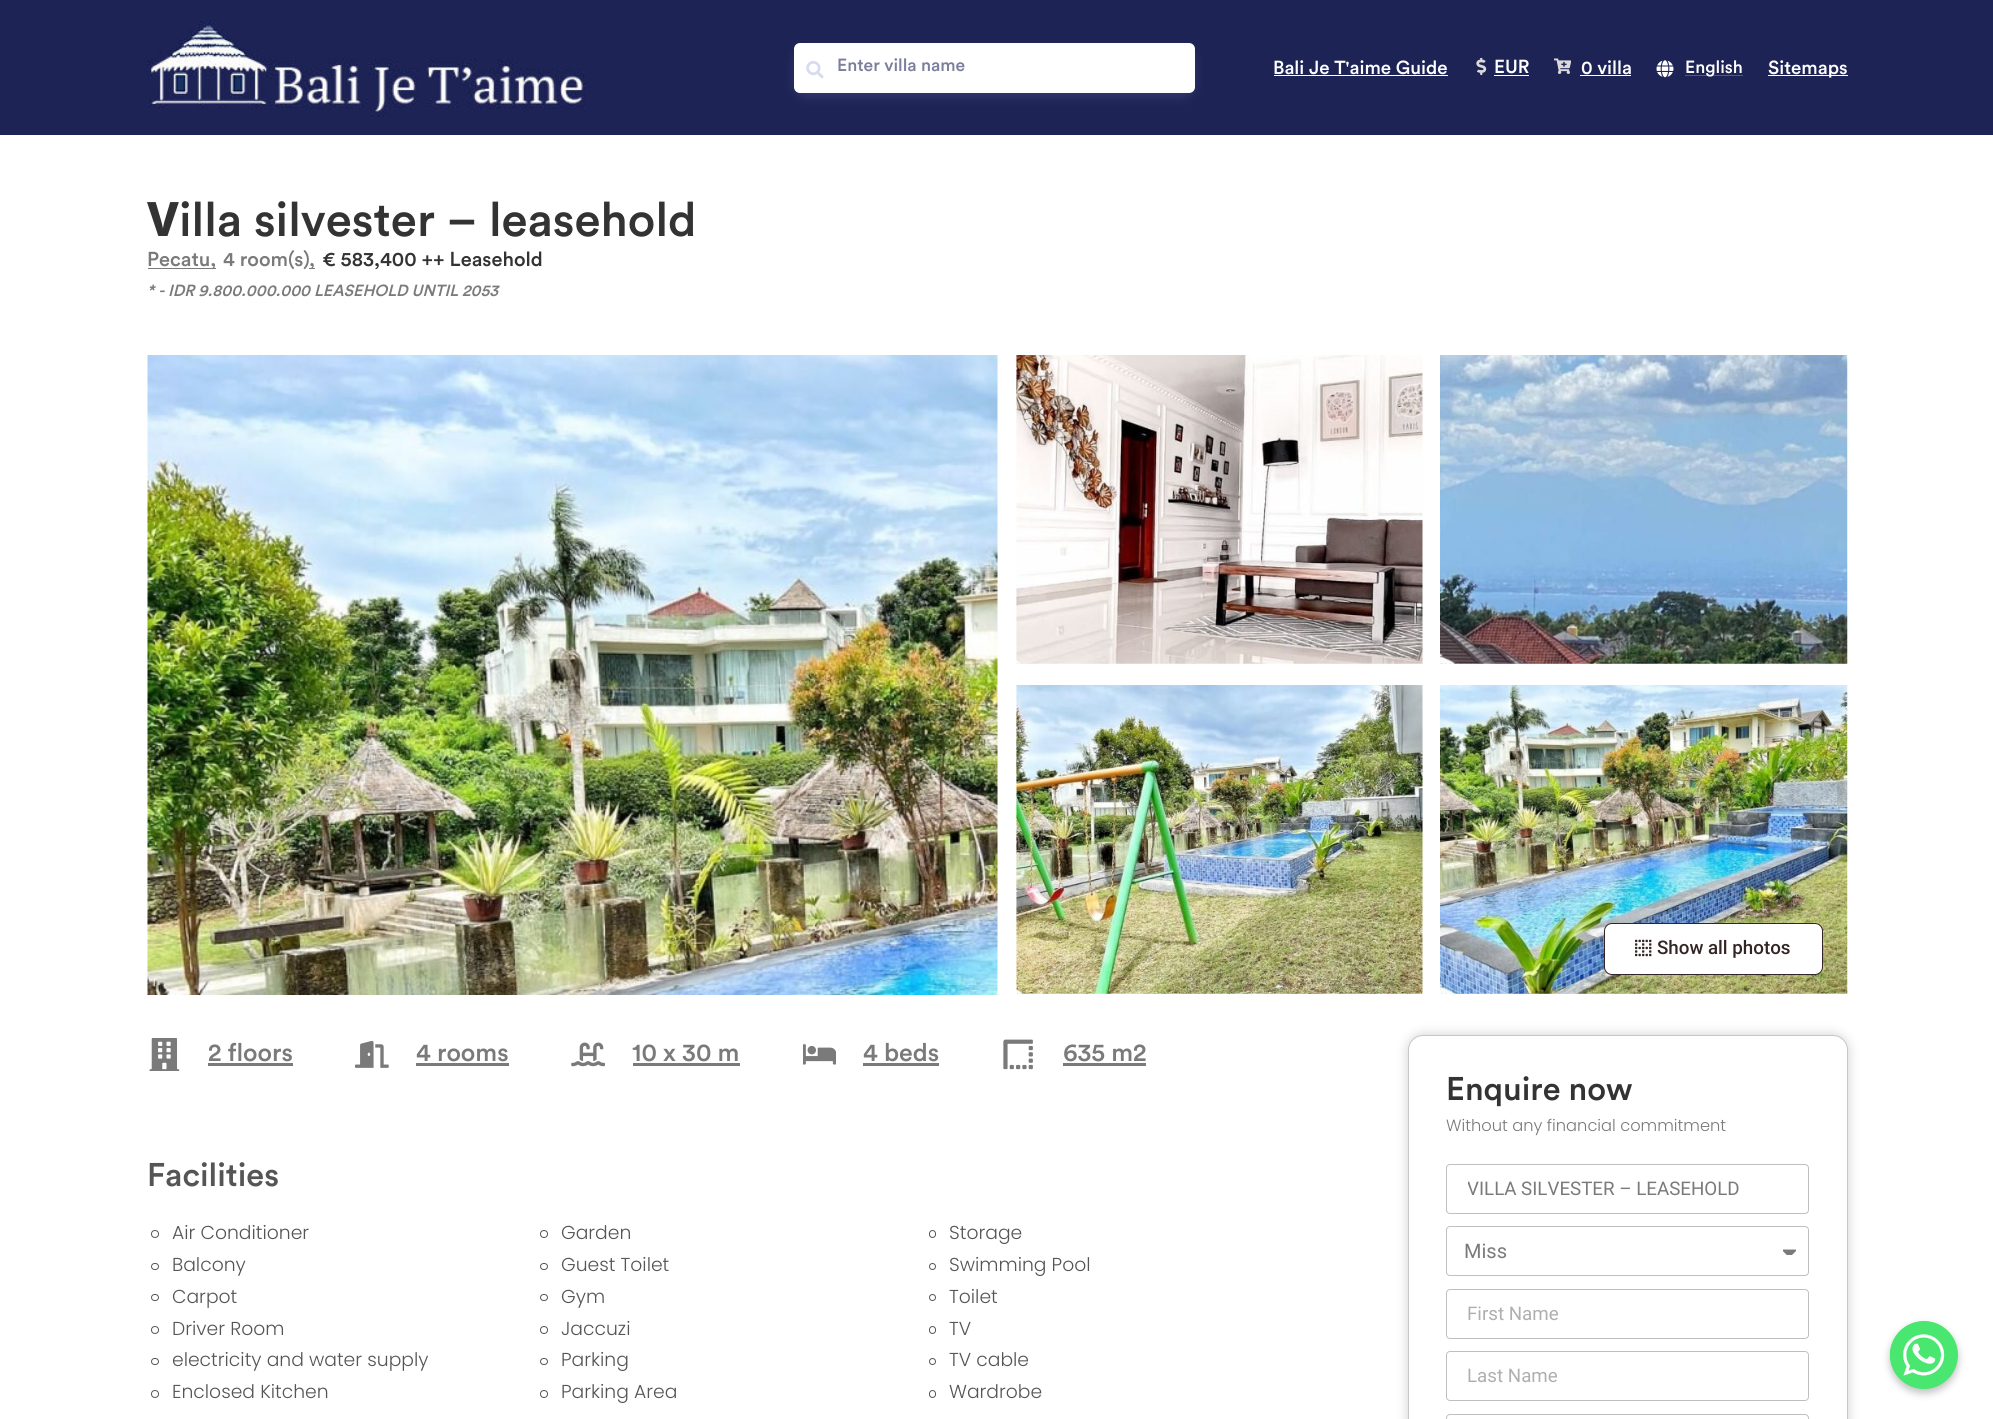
import math
import cairo

surface = cairo.ImageSurface(cairo.Format.RGB24, 1993, 1419)
ctx = cairo.Context(surface)
options = cairo.FontOptions()
options.set_hint_metrics(cairo.HintMetrics.OFF)
options.set_hint_style(cairo.HintStyle.NONE)
ctx.set_font_options(options)
ctx.set_miter_limit(4)


def ink(r, g, b):
    ctx.set_source_rgb(r / 255, g / 255, b / 255)


def write(x, y, s, family, size, color, bold=False, italic=False):
    ctx.select_font_face(family, cairo.FontSlant.ITALIC if italic else cairo.FontSlant.NORMAL, cairo.FontWeight.BOLD if bold else cairo.FontWeight.NORMAL)
    ctx.set_font_size(size)
    ink(*color)
    ctx.move_to(x, y)
    ctx.show_text(s)


def block(x, y, w, h, *color):
    ink(*color)
    ctx.rectangle(x, y, w, h)
    ctx.fill()


def round_path(x, y, w, h, r):
    ctx.new_sub_path()
    for i, (u, v) in enumerate([(x + w - r, y + h - r), (x + r, y + h - r), (x + r, y + r), (x + w - r, y + r)]):
        ctx.arc(u, v, r, i * math.pi / 2, (i + 1) * math.pi / 2)
    ctx.close_path()


def blur_box(x, y, w, h, r, blur, alpha):
    ctx.push_group_with_content(cairo.Content.ALPHA)
    ctx.set_operator(cairo.Operator.SOURCE)
    for i in range(15, -16, -2):
        e = blur * i / 6
        if min(w, h) + 2 * e > 0:
            ctx.set_source_rgba(0, 0, 0, alpha * math.erfc((i - 1) / 8.5) / 2)
            round_path(x - e, y - e, w + 2 * e, h + 2 * e, max(0, min(r + e + blur * .6, min(w, h) / 2 + e)))
            ctx.fill()
    ctx.mask(ctx.pop_group())


def paste(path, x, y, w, h):
    ctx.save()
    ctx.set_source_surface(cairo.ImageSurface.create_from_png(path), x, y)
    ctx.rectangle(x, y, w, h)
    ctx.fill()
    ctx.restore()


s1 = dict(family="Circular Medium", size=17.5, color=(123, 127, 156))
s2 = dict(family="Circular Medium", size=18.75, color=(255, 255, 255))
s3 = dict(family="Circular Medium", size=17.5, color=(255, 255, 255))
s4 = dict(family="Noto Sans ExtraBold", size=47.5, color=(51, 51, 51))
s5 = dict(family="Circular Medium", size=47.5, color=(51, 51, 51))
s6 = dict(family="Circular Medium", size=20, color=(122, 122, 122))
s7 = dict(family="Circular Medium", size=20, color=(51, 51, 51))
s8 = dict(family="Circular Medium", size=16, color=(122, 122, 122), italic=True)
s9 = dict(family="Roboto Medium", size=18.75, color=(51, 37, 37))
s10 = dict(family="Circular Medium", size=25, color=(122, 122, 122))
s11 = dict(family="Circular Medium", size=32.5, color=(86, 85, 85))
s12 = dict(family="Poppins Light", size=18.75, color=(86, 85, 85))
s13 = dict(family="Circular Medium", size=32.5, color=(51, 51, 51))
s14 = dict(family="Poppins Light", size=16.25, color=(122, 122, 122))
s15 = dict(family="Roboto", size=18.75, color=(122, 122, 122))
s16 = dict(family="Roboto", size=20, color=(122, 122, 122))
s17 = dict(family="Roboto", size=18.75, color=(175, 175, 175))

ink(255, 255, 255)
ctx.paint()
block(0, 0, 1993, 135, 29, 35, 85)
paste("pic1.png", 147, 19, 438, 98)
ink(165, 174, 213)
blur_box(794, 48, 401, 50, 13, 5, 0.15)
ink(255, 255, 255)
round_path(794, 43, 401, 50, 6)
ctx.fill()
paste("pic2.png", 806, 61, 18, 18)
write(837, 71, "Enter villa name", **s1)
write(1273, 74, "Bali Je T'aime Guide", **s2)
block(1274, 75, 174, 1, 255, 255, 255)
paste("pic3.png", 1476, 58, 11, 17)
write(1494, 73, "EUR", **s2)
block(1494, 75, 35, 1, 255, 255, 255)
paste("pic4.png", 1554, 58, 17, 16)
write(1581, 74, "0 villa", **s2)
block(1580, 75, 51, 1, 255, 255, 255)
paste("pic5.png", 1656, 60, 18, 18)
block(1685, 75, 58, 1, 93, 91, 91)
write(1685, 73, "English", **s3)
block(1768, 75, 80, 1, 255, 255, 255)
write(1768, 74, "Sitemaps", **s2)
write(147, 236, "V", **s4)
write(179, 236, "illa silvester – leasehold", **s5)
block(148, 268, 68, 1, 122, 122, 122)
write(147, 266, "Pecatu,", **s6)
write(223, 266, "4 room(s)", **s6)
block(309, 268, 6, 1, 122, 122, 122)
write(309, 266, ",", **s6)
write(322, 266, "€ 583,400 ++ Leasehold", **s7)
write(147, 296, "* - IDR 9.800.000.000 LEASEHOLD UNTIL 2053", **s8)
paste("pic6.png", 147, 355, 851, 640)
paste("pic7.png", 1016, 355, 407, 309)
paste("pic8.png", 1440, 355, 408, 309)
paste("pic9.png", 1016, 685, 407, 309)
paste("pic10.png", 1440, 685, 408, 309)
ink(255, 255, 255)
round_path(1604.5, 923.5, 218, 51, 7.5)
ctx.fill_preserve()
ink(51, 37, 37)
ctx.set_line_width(1)
ctx.stroke()
paste("pic11.png", 1635, 939, 17, 18)
write(1657, 954, "Show all photos", **s9)
paste("pic12.png", 149, 1038, 31, 33)
write(208, 1061, "2 floors", **s10)
block(208, 1063, 85, 3, 122, 122, 122)
paste("pic13.png", 355, 1040, 34, 28)
write(416, 1061, "4 rooms", **s10)
block(416, 1063, 93, 3, 122, 122, 122)
paste("pic14.png", 571, 1042, 34, 25)
write(632, 1061, "10 x 30 m", **s10)
block(633, 1063, 107, 3, 122, 122, 122)
paste("pic15.png", 803, 1044, 33, 21)
write(863, 1061, "4 beds", **s10)
block(863, 1063, 76, 3, 122, 122, 122)
paste("pic16.png", 1003, 1039, 30, 31)
write(1063, 1061, "635 m2", **s10)
block(1063, 1063, 83, 3, 122, 122, 122)
write(147, 1186, "Facilities", **s11)
ctx.new_path()
ctx.arc(155, 1234, 3.5, 0, 2 * math.pi)
ctx.stroke()
write(172, 1239, "Air Conditioner", **s12)
ctx.new_path()
ctx.arc(544, 1234, 3.5, 0, 2 * math.pi)
ctx.stroke()
write(561, 1239, "Garden", **s12)
round_path(929.5, 1230.5, 6, 7, 3)
ctx.stroke()
write(949, 1239, "Storage", **s12)
round_path(151.5, 1263.5, 7, 6, 3)
ctx.stroke()
write(172, 1271, "Balcony", **s12)
round_path(540.5, 1263.5, 7, 6, 3)
ctx.stroke()
write(561, 1271, "Guest Toilet", **s12)
ctx.new_path()
ctx.arc(932.5, 1266.5, 3, 0, 2 * math.pi)
ctx.stroke()
write(949, 1271, "Swimming Pool", **s12)
round_path(151.5, 1294.5, 7, 6, 3)
ctx.stroke()
write(172, 1303, "Carpot", **s12)
round_path(540.5, 1294.5, 7, 6, 3)
ctx.stroke()
write(561, 1303, "Gym", **s12)
ctx.new_path()
ctx.arc(932.5, 1297.5, 3, 0, 2 * math.pi)
ctx.stroke()
write(949, 1303, "Toilet", **s12)
ctx.new_path()
ctx.arc(155, 1330, 3.5, 0, 2 * math.pi)
ctx.stroke()
write(172, 1335, "Driver Room", **s12)
ctx.new_path()
ctx.arc(544, 1330, 3.5, 0, 2 * math.pi)
ctx.stroke()
write(561, 1335, "Jaccuzi", **s12)
round_path(929.5, 1326.5, 6, 7, 3)
ctx.stroke()
write(949, 1335, "TV", **s12)
round_path(151.5, 1358.5, 7, 6, 3)
ctx.stroke()
write(172, 1366, "electricity and water supply", **s12)
round_path(540.5, 1358.5, 7, 6, 3)
ctx.stroke()
write(561, 1366, "Parking", **s12)
ctx.new_path()
ctx.arc(932.5, 1361.5, 3, 0, 2 * math.pi)
ctx.stroke()
write(949, 1366, "TV cable", **s12)
ctx.new_path()
ctx.arc(155, 1394, 3.5, 0, 2 * math.pi)
ctx.stroke()
write(172, 1398, "Enclosed Kitchen", **s12)
ctx.new_path()
ctx.arc(544, 1394, 3.5, 0, 2 * math.pi)
ctx.stroke()
write(561, 1398, "Parking Area", **s12)
round_path(929.5, 1390.5, 6, 7, 3)
ctx.stroke()
write(949, 1398, "Wardrobe", **s12)
ink(0, 0, 0)
blur_box(1408, 1035, 440, 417, 15, 6, 0.19)
ink(255, 255, 255)
round_path(1408.5, 1035.5, 439, 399, 14.5)
ctx.fill_preserve()
ink(200, 198, 198)
ctx.stroke()
write(1446, 1100, "Enquire now", **s13)
write(1446, 1131, "Without any financial commitment", **s14)
round_path(1446.5, 1164.5, 362, 49, 3.5)
ink(191, 191, 191)
ctx.stroke()
ctx.save()
ctx.rectangle(1468, 1176, 320, 27)
ctx.clip()
write(1467, 1195, "VILLA SILVESTER – LEASEHOLD", **s15)
ctx.restore()
round_path(1446.5, 1226.5, 362, 49, 3.5)
ctx.stroke()
write(1464, 1258, "Miss", **s16)
paste("pic17.png", 1783, 1249, 13, 6)
round_path(1446.5, 1289.5, 362, 49, 3.5)
ink(191, 191, 191)
ctx.stroke()
write(1467, 1320, "First Name", **s17)
round_path(1446.5, 1351.5, 362, 49, 3.5)
ink(191, 191, 191)
ctx.stroke()
write(1467, 1382, "Last Name", **s17)
round_path(1446.5, 1414.5, 362, 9, 3.5)
ink(191, 191, 191)
ctx.stroke()
ink(0, 0, 0)
blur_box(1890, 1325, 68, 68, 34, 4, 0.25)
ink(73, 230, 112)
ctx.arc(1924, 1355, 34, 0, 2 * math.pi)
ctx.fill()
paste("pic18.png", 1890, 1321, 55, 68)
surface.write_to_png("screenshot.png")
